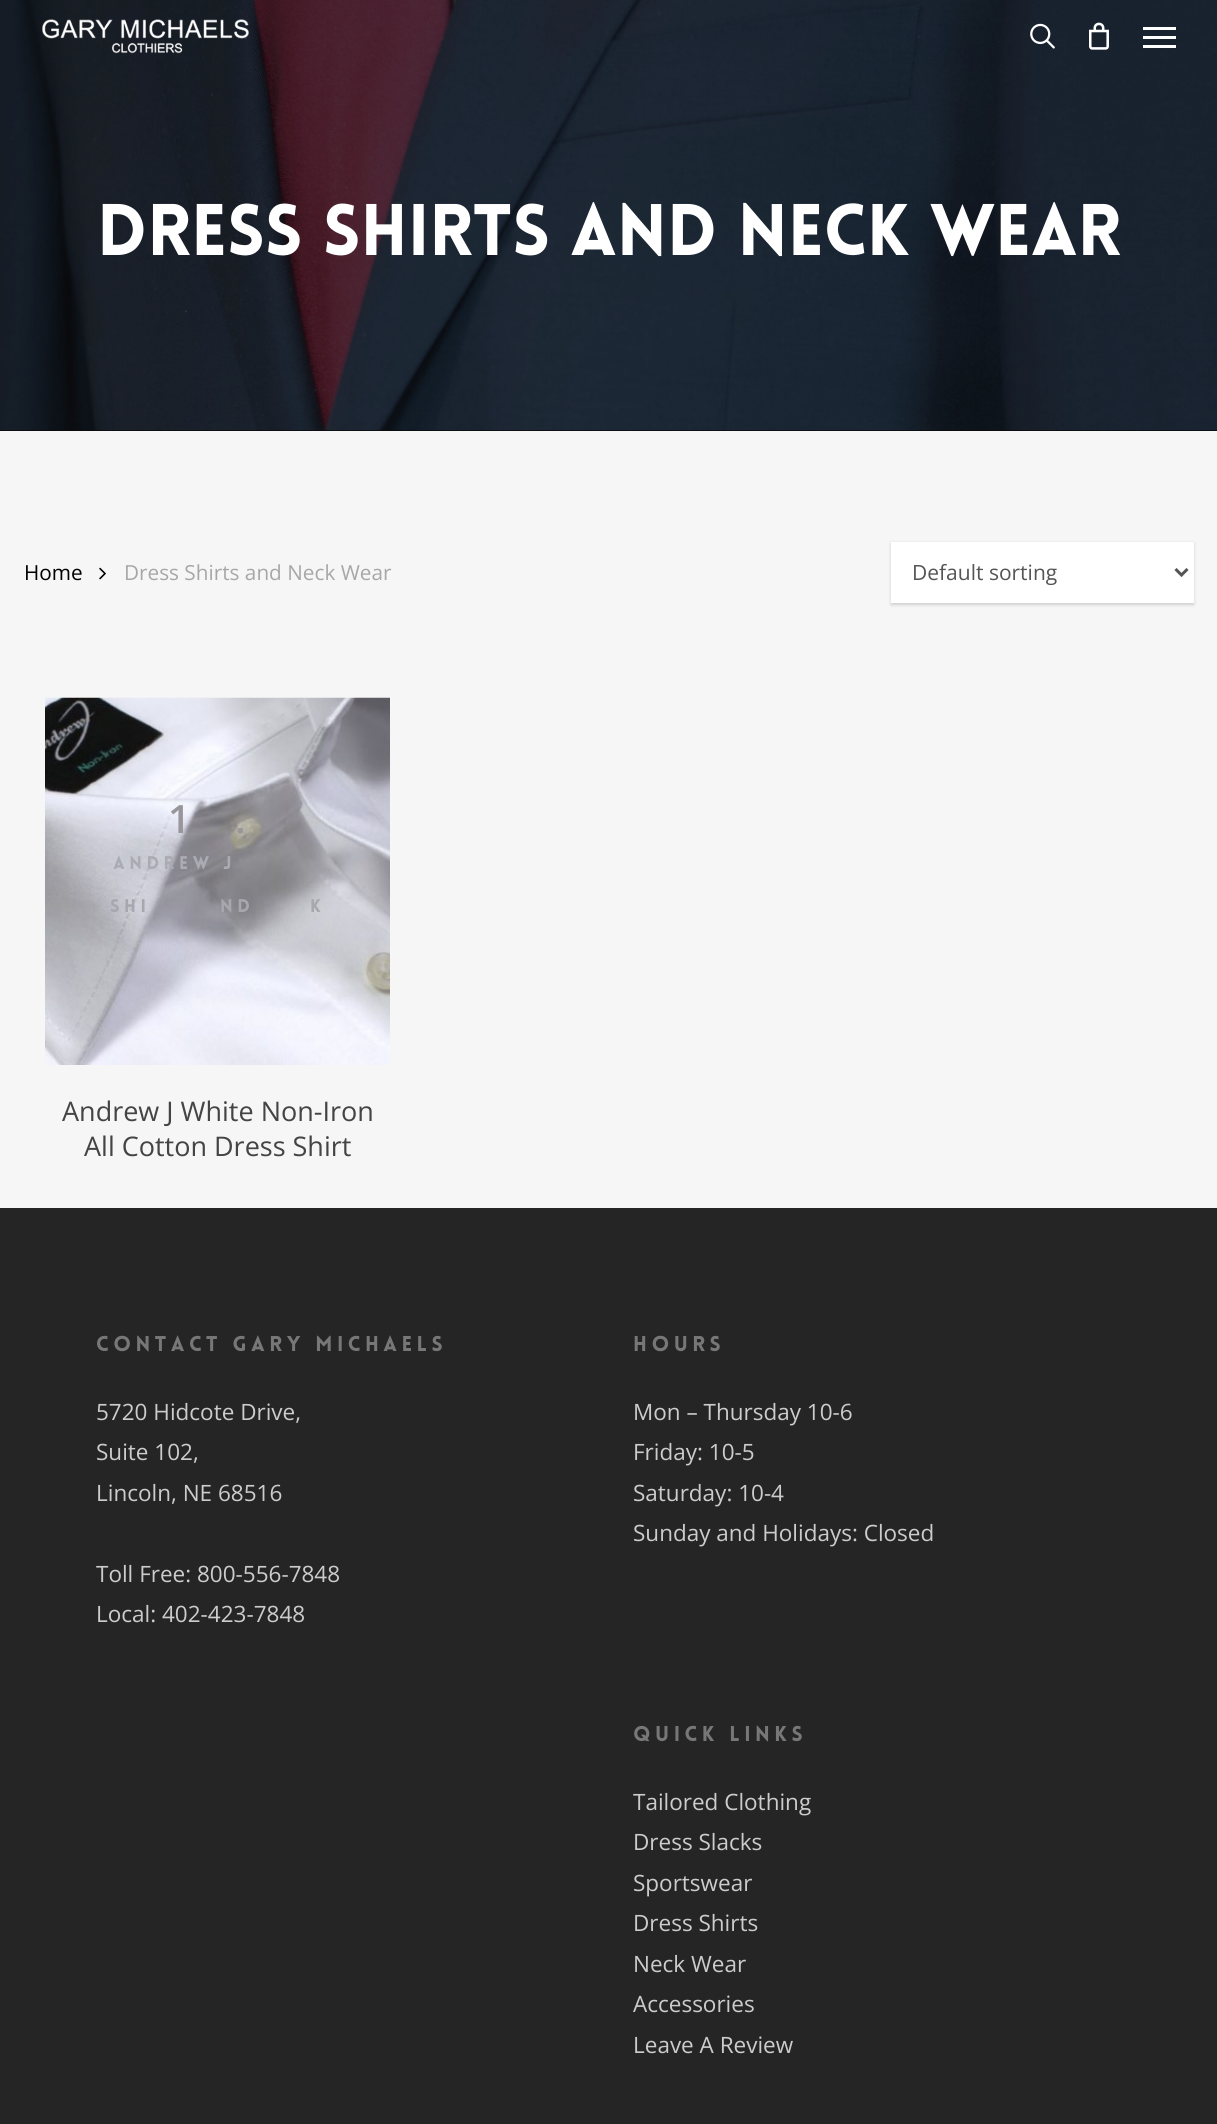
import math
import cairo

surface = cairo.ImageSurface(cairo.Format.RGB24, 1217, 2124)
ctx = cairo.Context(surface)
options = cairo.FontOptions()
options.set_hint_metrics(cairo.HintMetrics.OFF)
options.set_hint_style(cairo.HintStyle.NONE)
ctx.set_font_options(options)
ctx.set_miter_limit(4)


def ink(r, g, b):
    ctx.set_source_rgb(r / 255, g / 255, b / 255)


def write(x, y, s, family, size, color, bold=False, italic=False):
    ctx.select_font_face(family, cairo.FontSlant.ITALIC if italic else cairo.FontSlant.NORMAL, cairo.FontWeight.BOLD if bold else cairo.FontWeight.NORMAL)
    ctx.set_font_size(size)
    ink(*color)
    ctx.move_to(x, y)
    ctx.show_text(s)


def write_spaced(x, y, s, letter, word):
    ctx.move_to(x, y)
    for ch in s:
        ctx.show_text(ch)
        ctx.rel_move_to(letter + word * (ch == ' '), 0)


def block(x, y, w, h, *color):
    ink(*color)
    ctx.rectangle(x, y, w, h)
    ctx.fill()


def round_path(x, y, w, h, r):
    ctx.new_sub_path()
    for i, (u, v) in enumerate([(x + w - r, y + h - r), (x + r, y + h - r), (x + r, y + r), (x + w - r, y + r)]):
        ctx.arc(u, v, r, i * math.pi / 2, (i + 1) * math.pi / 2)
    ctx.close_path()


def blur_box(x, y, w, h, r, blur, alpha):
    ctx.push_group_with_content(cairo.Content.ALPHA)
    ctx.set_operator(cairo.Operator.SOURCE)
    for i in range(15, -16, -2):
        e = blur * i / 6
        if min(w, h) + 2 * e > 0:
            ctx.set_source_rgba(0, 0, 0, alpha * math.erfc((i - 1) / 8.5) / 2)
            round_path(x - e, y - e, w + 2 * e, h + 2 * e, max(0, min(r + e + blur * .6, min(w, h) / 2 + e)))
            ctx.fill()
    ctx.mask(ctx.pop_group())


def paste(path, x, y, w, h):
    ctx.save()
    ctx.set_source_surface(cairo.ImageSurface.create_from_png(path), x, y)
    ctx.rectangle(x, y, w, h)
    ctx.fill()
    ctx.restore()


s1 = dict(family="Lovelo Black", size=71.4, color=(255, 255, 255))
s2 = dict(family="Open Sans", size=20.75, color=(0, 0, 0))
s3 = dict(family="Open Sans", size=20.75, color=(167, 167, 167))
s4 = dict(family="Open Sans", size=21, color=(85, 85, 85))
s5 = dict(family="Open Sans SemiBold", size=39, color=(152, 150, 154))
s6 = dict(family="Open Sans", size=27, color=(68, 68, 68))
s7 = dict(family="Open Sans", size=22.5, color=(204, 204, 204))

ink(9, 9, 9)
ctx.paint()
paste("pic4.png", 0, 0, 1217, 431)
paste("pic1.png", 42, 19, 207, 35)
paste("pic2.png", 1030, 23, 25, 26)
paste("pic3.png", 1089, 22, 20, 28)
block(1143, 27, 33, 3, 255, 255, 255)
block(1143, 45, 33, 3, 255, 255, 255)
block(1143, 36, 33, 3, 255, 255, 255)
write(97, 255, "Dress Shirts and Neck Wear", **s1)
block(0, 431, 1217, 777, 246, 246, 246)
write(24, 580, "Home", **s2)
paste("pic5.png", 99, 567, 7, 13)
write(124, 580, "Dress Shirts and Neck Wear", **s3)
ink(0, 0, 0)
blur_box(891, 543, 303, 62, 0, 1.5, 0.16)
block(891, 542, 303, 61, 255, 255, 255)
ctx.new_path()
ctx.move_to(1175.5, 569)
ctx.line_to(1181.5, 575)
ctx.line_to(1187.5, 569)
ink(85, 85, 85)
ctx.set_line_width(3)
ctx.stroke()
write(912, 580, "Default sorting", **s4)
paste("pic6.png", 45, 697, 345, 368)
write(168, 833, "1", **s5)
write(235, 833, ".", **s5)
ctx.select_font_face("Lovelo Black")
ctx.set_font_size(18)
ink(171, 171, 180)
write_spaced(113, 869, "Andrew J", 4.5, 0)
ink(167, 167, 174)
write_spaced(110, 912, "Shi", 4.5, 0)
write_spaced(220, 912, "nd", 4.5, 0)
write_spaced(310, 912, "k", 4.5, 0)
write(62, 1121, "Andrew J White Non-Iron", **s6)
write(84, 1156, "All Cotton Dress Shirt", **s6)
block(0, 1208, 1217, 916, 37, 37, 37)
ctx.select_font_face("Lovelo Black")
ctx.set_font_size(21)
ink(119, 119, 119)
write_spaced(96, 1351, "CONTACT GARY MICHAELS", 4.5, 0)
write(96, 1420, "5720 Hidcote Drive,", **s7)
write(96, 1460, "Suite 102,", **s7)
write(96, 1501, "Lincoln, NE 68516", **s7)
write(96, 1582, "Toll Free: 800-556-7848", **s7)
write(96, 1622, "Local: 402-423-7848", **s7)
ctx.select_font_face("Lovelo Black")
ctx.set_font_size(21)
ink(119, 119, 119)
write_spaced(633, 1351, "Hours", 4.5, 0)
write(633, 1420, "Mon – Thursday 10-6", **s7)
write(633, 1460, "Friday: 10-5", **s7)
write(633, 1501, "Saturday: 10-4", **s7)
write(633, 1541, "Sunday and Holidays: Closed", **s7)
ctx.select_font_face("Lovelo Black")
ctx.set_font_size(21)
ink(119, 119, 119)
write_spaced(633, 1741, "Quick Links", 4.5, 0)
write(633, 1810, "Tailored Clothing", **s7)
write(633, 1850, "Dress Slacks", **s7)
write(633, 1891, "Sportswear", **s7)
write(633, 1931, "Dress Shirts", **s7)
write(633, 1972, "Neck Wear", **s7)
write(633, 2012, "Accessories", **s7)
write(633, 2053, "Leave A Review", **s7)
surface.write_to_png("screenshot.png")
